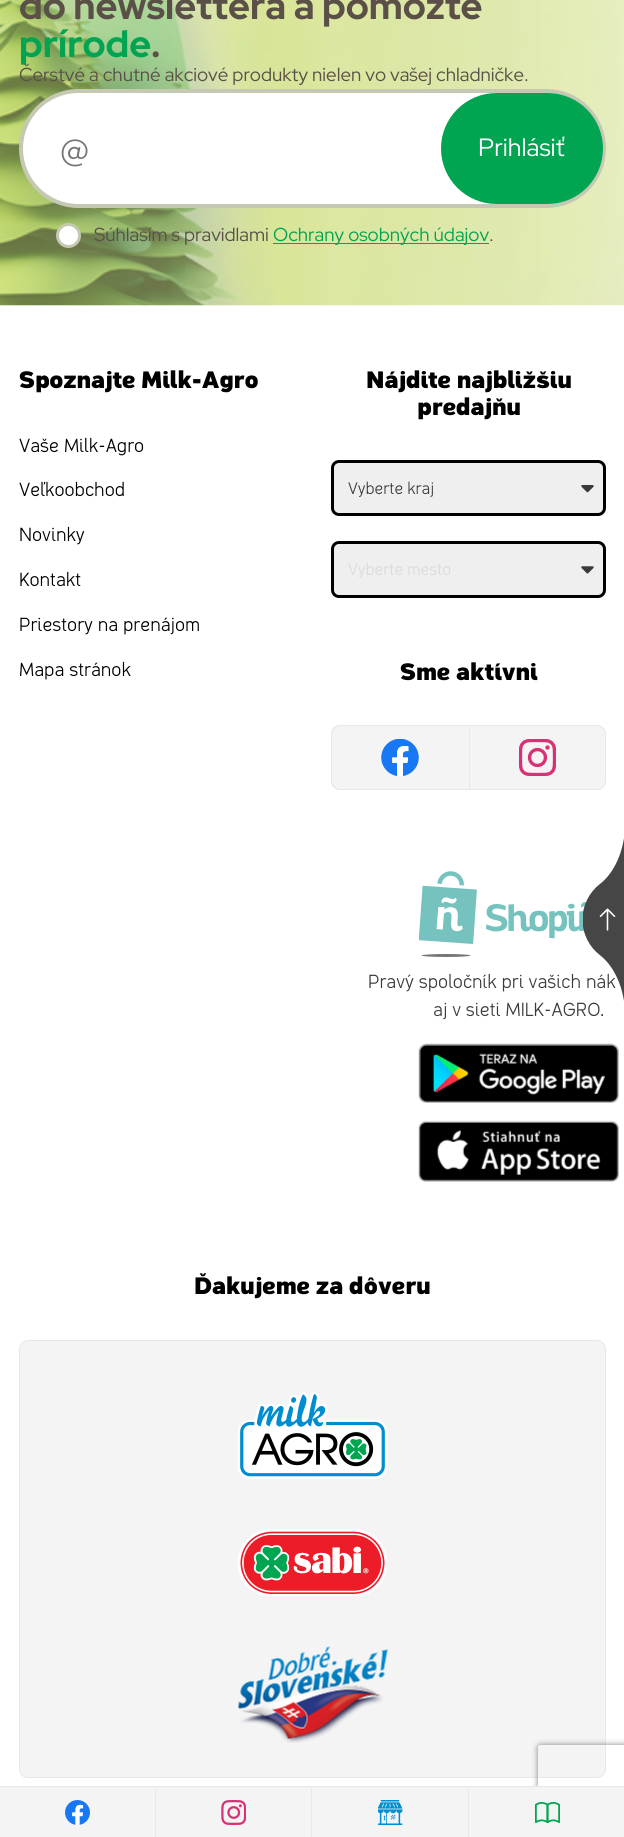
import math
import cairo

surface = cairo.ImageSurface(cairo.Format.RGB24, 624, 1837)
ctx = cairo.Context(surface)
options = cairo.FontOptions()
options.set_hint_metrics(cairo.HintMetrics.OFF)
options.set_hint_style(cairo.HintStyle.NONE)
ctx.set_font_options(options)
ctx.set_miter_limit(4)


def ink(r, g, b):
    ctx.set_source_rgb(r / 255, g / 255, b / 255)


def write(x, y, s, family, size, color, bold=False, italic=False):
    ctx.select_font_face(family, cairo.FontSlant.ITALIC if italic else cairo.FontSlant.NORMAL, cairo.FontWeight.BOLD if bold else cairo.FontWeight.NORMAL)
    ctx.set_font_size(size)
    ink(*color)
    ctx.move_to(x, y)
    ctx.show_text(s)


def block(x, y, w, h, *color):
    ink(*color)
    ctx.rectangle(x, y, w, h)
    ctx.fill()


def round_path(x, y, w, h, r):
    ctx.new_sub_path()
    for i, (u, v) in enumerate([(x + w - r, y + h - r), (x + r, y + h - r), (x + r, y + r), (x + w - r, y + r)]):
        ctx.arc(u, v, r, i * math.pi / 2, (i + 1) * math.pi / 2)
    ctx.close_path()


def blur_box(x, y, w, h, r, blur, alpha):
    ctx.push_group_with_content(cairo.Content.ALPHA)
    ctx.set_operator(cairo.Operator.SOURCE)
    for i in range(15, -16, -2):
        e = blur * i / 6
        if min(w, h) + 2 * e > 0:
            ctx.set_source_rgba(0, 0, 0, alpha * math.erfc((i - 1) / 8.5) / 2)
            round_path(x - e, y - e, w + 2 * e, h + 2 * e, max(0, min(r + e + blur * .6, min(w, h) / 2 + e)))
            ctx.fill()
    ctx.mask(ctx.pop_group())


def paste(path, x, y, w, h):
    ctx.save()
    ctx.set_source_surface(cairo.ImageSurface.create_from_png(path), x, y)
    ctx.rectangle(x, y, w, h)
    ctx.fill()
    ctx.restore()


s1 = dict(family="Red Hat Display ExtraBold", size=37.5, color=(90, 80, 71))
s2 = dict(family="Red Hat Display ExtraBold", size=37.5, color=(0, 164, 81))
s3 = dict(family="Red Hat Display", size=18.75, color=(90, 80, 71))
s4 = dict(family="Red Hat Display", size=37.5, color=(117, 117, 117))
s5 = dict(family="Red Hat Display", size=25, color=(255, 255, 255))
s6 = dict(family="Red Hat Display", size=18.75, color=(0, 164, 81))
s7 = dict(family="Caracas", size=25, color=(0, 0, 0), bold=True)
s8 = dict(family="Caracas Light", size=20, color=(0, 0, 0))
s9 = dict(family="Caracas Light", size=17.5, color=(58, 58, 58))
s10 = dict(family="Caracas Light", size=17.5, color=(220, 217, 217))
s11 = dict(family="Caracas Light", size=20, color=(58, 58, 58))

ink(255, 255, 255)
ctx.paint()
paste("pic1.png", 0, 0, 624, 306)
paste("pic2.png", 0, 0, 275, 306)
paste("pic3.png", 327, 0, 297, 305)
write(19, 19, "do newslettera a pomôžte", **s1)
write(19, 57, "prírode", **s2)
write(151, 57, ".", **s1)
write(19, 81, "Čerstvé a chutné akciové produkty nielen vo vašej chladničke.", **s3)
ink(255, 255, 255)
round_path(21, 91, 583, 115, 57.5)
ctx.fill_preserve()
ink(197, 201, 180)
ctx.set_line_width(4)
ctx.stroke()
write(60, 161, "@", **s4)
ink(0, 164, 81)
round_path(441, 93, 162, 111, 55.5)
ctx.fill()
write(478, 156, "Prihlásiť", **s5)
ink(244, 244, 244)
round_path(19.5, 1340.5, 586, 437, 8.5)
ctx.fill_preserve()
ink(232, 232, 232)
ctx.set_line_width(1)
ctx.stroke()
ctx.save()
ctx.set_fill_rule(cairo.FillRule.EVEN_ODD)
ctx.new_path()
ctx.move_to(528, 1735)
ctx.line_to(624, 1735)
ctx.line_to(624, 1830)
ctx.line_to(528, 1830)
ctx.close_path()
ctx.move_to(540.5, 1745)
ctx.line_to(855.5, 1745)
ctx.curve_to(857, 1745, 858, 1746, 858, 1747.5)
ctx.line_to(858, 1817.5)
ctx.curve_to(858, 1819, 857, 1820, 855.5, 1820)
ctx.line_to(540.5, 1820)
ctx.curve_to(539, 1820, 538, 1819, 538, 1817.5)
ctx.line_to(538, 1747.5)
ctx.curve_to(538, 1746, 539, 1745, 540.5, 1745)
ctx.close_path()
ctx.clip()
ink(128, 128, 128)
blur_box(538, 1745, 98, 75, 2.5, 3, 1)
ctx.restore()
ink(255, 255, 255)
ctx.arc(68.5, 235.5, 11, 0, 2 * math.pi)
ctx.fill_preserve()
ink(197, 201, 180)
ctx.set_line_width(3)
ctx.stroke()
write(94, 241, "Súhlasím s pravidlami", **s3)
block(273, 243, 216, 1, 0, 164, 81)
write(273, 241, "Ochrany osobných údajov", **s6)
write(489, 241, ".", **s3)
write(19, 388, "Spoznajte Milk-Agro", **s7)
write(19, 452, "Vaše Milk-Agro", **s8)
write(19, 496, "Veľkoobchod", **s8)
write(19, 541, "Novinky", **s8)
write(19, 586, "Kontakt", **s8)
write(19, 631, "Priestory na prenájom", **s8)
write(19, 676, "Mapa stránok", **s8)
write(366, 388, "Nájdite najbližšiu", **s7)
write(417, 415, "predajňu", **s7)
ink(239, 239, 239)
round_path(331, 460, 275, 56, 8)
ctx.fill()
paste("pic4.png", 581, 485, 13, 8)
round_path(332.5, 461.5, 272, 53, 6.5)
ink(0, 0, 0)
ctx.stroke()
write(348, 494, "Vyberte kraj", **s9)
ink(239, 239, 239)
round_path(331, 541, 275, 57, 8)
ctx.fill()
paste("pic5.png", 581, 566, 13, 8)
round_path(332.5, 542.5, 272, 54, 6.5)
ink(0, 0, 0)
ctx.stroke()
write(348, 575, "Vyberte mesto", **s10)
write(400, 680, "Sme aktívni", **s7)
ink(244, 244, 244)
ctx.new_path()
ctx.move_to(340, 725)
ctx.line_to(469, 725)
ctx.line_to(469, 790)
ctx.line_to(340, 790)
ctx.curve_to(335, 790, 331, 786, 331, 781)
ctx.line_to(331, 734)
ctx.curve_to(331, 729, 335, 725, 340, 725)
ctx.close_path()
ctx.fill()
paste("pic6.png", 381, 739, 38, 37)
ink(232, 232, 232)
ctx.set_fill_rule(cairo.FillRule.EVEN_ODD)
ctx.new_path()
ctx.move_to(340, 725)
ctx.line_to(469, 725)
ctx.line_to(469, 790)
ctx.line_to(340, 790)
ctx.curve_to(335, 790, 331, 786, 331, 781)
ctx.line_to(331, 734)
ctx.curve_to(331, 729, 335, 725, 340, 725)
ctx.close_path()
ctx.move_to(340, 726)
ctx.line_to(469, 726)
ctx.line_to(469, 789)
ctx.line_to(340, 789)
ctx.curve_to(336, 789, 332, 785, 332, 781)
ctx.line_to(332, 734)
ctx.curve_to(332, 730, 336, 726, 340, 726)
ctx.close_path()
ctx.fill()
ink(244, 244, 244)
ctx.new_path()
ctx.move_to(469, 725)
ctx.line_to(597, 725)
ctx.curve_to(602, 725, 606, 729, 606, 734)
ctx.line_to(606, 781)
ctx.curve_to(606, 786, 602, 790, 597, 790)
ctx.line_to(469, 790)
ctx.close_path()
ctx.fill()
paste("pic7.png", 519, 739, 37, 37)
ctx.new_path()
ctx.move_to(469.5, 725.5)
ctx.line_to(597, 725.5)
ctx.curve_to(601.5, 725.5, 605.5, 729.5, 605.5, 734)
ctx.line_to(605.5, 781)
ctx.curve_to(605.5, 785.5, 601.5, 789.5, 597, 789.5)
ctx.line_to(469.5, 789.5)
ctx.close_path()
ink(232, 232, 232)
ctx.set_line_width(1)
ctx.stroke()
paste("pic8.png", 419, 871, 168, 86)
write(368, 988, "Pravý spoločník pri vašich nák", **s11)
write(433, 1016, "aj v sieti MILK-AGRO.", **s11)
paste("pic9.png", 418, 1043, 201, 60)
paste("pic10.png", 418, 1120, 201, 62)
write(194, 1294, "Ďakujeme za dôveru", **s7)
paste("pic11.png", 238, 1391, 150, 88)
paste("pic12.png", 238, 1529, 150, 67)
paste("pic13.png", 238, 1646, 150, 97)
paste("pic14.png", 583, 838, 41, 163)
block(0, 1787, 624, 50, 244, 244, 244)
block(0, 1786, 624, 1, 232, 232, 232)
block(155, 1788, 1, 49, 232, 232, 232)
paste("pic15.png", 65, 1800, 25, 25)
block(311, 1788, 1, 49, 232, 232, 232)
paste("pic16.png", 221, 1800, 25, 25)
block(468, 1788, 1, 49, 232, 232, 232)
paste("pic17.png", 378, 1800, 25, 25)
paste("pic18.png", 535, 1801, 25, 23)
surface.write_to_png("screenshot.png")
